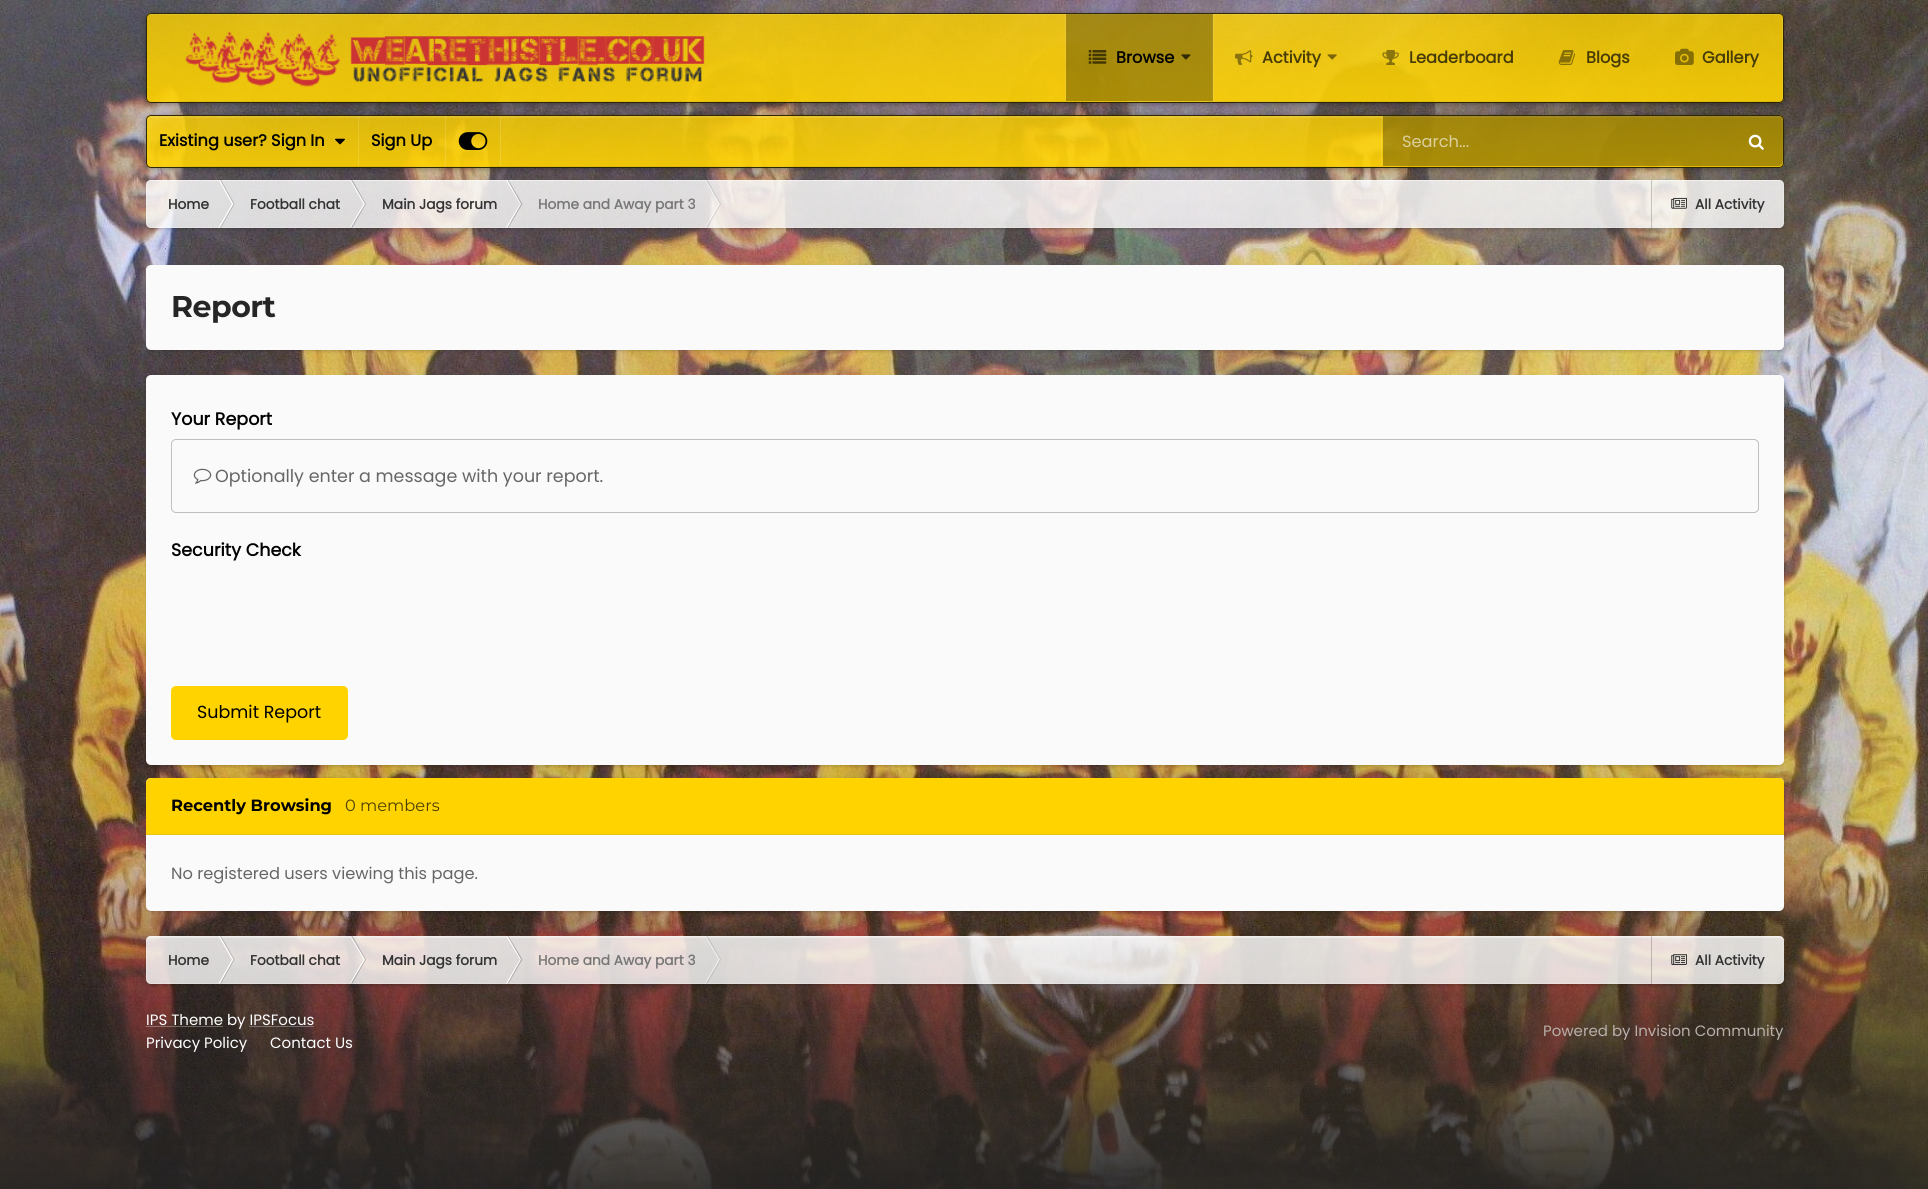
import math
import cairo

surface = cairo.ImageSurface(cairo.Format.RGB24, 1928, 1189)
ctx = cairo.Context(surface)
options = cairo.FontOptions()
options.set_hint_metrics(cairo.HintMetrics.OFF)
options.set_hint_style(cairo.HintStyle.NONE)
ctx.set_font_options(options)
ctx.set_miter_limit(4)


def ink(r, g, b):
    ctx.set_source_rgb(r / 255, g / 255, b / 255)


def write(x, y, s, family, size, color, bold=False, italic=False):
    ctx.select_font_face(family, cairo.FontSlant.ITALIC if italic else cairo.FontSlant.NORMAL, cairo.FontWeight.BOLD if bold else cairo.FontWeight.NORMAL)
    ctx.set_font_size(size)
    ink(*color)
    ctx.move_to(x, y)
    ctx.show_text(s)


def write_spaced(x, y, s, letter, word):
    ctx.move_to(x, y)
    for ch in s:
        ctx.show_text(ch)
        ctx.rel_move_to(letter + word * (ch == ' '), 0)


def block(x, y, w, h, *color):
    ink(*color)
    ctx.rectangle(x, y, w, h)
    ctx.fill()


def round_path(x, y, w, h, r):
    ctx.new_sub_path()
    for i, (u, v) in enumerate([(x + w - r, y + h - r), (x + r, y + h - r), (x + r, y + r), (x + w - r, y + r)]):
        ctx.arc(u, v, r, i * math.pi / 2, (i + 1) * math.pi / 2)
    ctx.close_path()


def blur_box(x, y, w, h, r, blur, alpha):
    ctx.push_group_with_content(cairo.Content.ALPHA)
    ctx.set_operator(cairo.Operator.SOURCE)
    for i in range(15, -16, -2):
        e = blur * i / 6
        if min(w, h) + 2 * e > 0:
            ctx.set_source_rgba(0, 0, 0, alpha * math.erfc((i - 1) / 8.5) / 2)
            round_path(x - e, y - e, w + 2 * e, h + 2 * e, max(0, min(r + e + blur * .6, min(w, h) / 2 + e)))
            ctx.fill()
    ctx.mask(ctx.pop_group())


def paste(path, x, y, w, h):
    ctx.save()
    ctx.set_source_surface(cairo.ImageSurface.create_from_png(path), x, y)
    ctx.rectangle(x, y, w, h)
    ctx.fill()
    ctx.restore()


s1 = dict(family="Poppins", size=16.25, color=(0, 0, 0), bold=True)
s2 = dict(family="Poppins", size=16.25, color=(71, 59, 6), bold=True)
s3 = dict(family="Poppins", size=16.25, color=(219, 208, 157))
s4 = dict(family="Poppins", size=13.75, color=(51, 51, 51), bold=True)
s5 = dict(family="Poppins", size=13.75, color=(120, 119, 119), bold=True)
s6 = dict(family="Poppins", size=17.5, color=(0, 0, 0), bold=True)
s7 = dict(family="Poppins", size=17.5, color=(102, 102, 102))
s8 = dict(family="Poppins", size=17.5, color=(0, 0, 0))
s9 = dict(family="Montserrat", size=16.25, color=(0, 0, 0), bold=True)
s10 = dict(family="Montserrat", size=16.25, color=(77, 63, 0))
s11 = dict(family="Poppins", size=16.25, color=(102, 102, 102))
s12 = dict(family="Poppins", size=15, color=(255, 255, 255))
s13 = dict(family="Poppins", size=15, color=(183, 175, 170))

ink(255, 255, 255)
ctx.paint()
paste("pic1.png", 0, 0, 1928, 1189)
ctx.save()
ctx.set_fill_rule(cairo.FillRule.EVEN_ODD)
ctx.new_path()
ctx.move_to(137, 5)
ctx.line_to(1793, 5)
ctx.line_to(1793, 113)
ctx.line_to(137, 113)
ctx.close_path()
ctx.move_to(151, 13)
ctx.line_to(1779, 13)
ctx.curve_to(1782, 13, 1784, 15, 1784, 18)
ctx.line_to(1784, 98)
ctx.curve_to(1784, 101, 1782, 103, 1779, 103)
ctx.line_to(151, 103)
ctx.curve_to(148, 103, 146, 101, 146, 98)
ctx.line_to(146, 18)
ctx.curve_to(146, 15, 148, 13, 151, 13)
ctx.close_path()
ctx.clip()
ink(0, 0, 0)
blur_box(146, 14, 1638, 90, 5, 2.5, 0.3)
ctx.restore()
ctx.save()
round_path(146, 13, 1638, 90, 5)
ctx.clip()
gradient = cairo.LinearGradient(965, -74, 965, 14)
gradient.add_color_stop_rgba(0, 1, 0.827, 0, 0.8)
gradient.add_color_stop_rgba(1, 1, 0.827, 0, 0.9)
ctx.set_source(gradient)
ctx.rectangle(146, 13, 1638, 1)
ctx.fill()
gradient = cairo.LinearGradient(965, 14, 965, 101)
gradient.add_color_stop_rgba(0, 1, 0.827, 0, 0.8)
gradient.add_color_stop_rgba(1, 1, 0.827, 0, 0.9)
ctx.set_source(gradient)
ctx.rectangle(146, 14, 1638, 87)
ctx.fill()
gradient = cairo.LinearGradient(965, 101, 965, 189)
gradient.add_color_stop_rgba(0, 1, 0.827, 0, 0.8)
gradient.add_color_stop_rgba(1, 1, 0.827, 0, 0.9)
ctx.set_source(gradient)
ctx.rectangle(146, 101, 1638, 2)
ctx.fill()
ctx.restore()
ctx.set_source_rgba(1, 1, 1, 0.12)
ctx.new_path()
ctx.move_to(151, 15)
ctx.line_to(1779, 15)
ctx.curve_to(1781, 15, 1782, 17, 1782, 19)
ctx.line_to(1782, 100)
ctx.curve_to(1783, 99, 1783, 98, 1783, 97)
ctx.line_to(1783, 18)
ctx.curve_to(1783, 16, 1781, 14, 1779, 14)
ctx.line_to(152, 14)
ctx.curve_to(150, 14, 148, 16, 148, 18)
ctx.line_to(148, 19)
ctx.curve_to(148, 17, 149, 15, 151, 15)
ctx.close_path()
ctx.fill()
round_path(146.5, 13.5, 1637, 89, 4.5)
ctx.set_source_rgba(0, 0, 0, 0.8)
ctx.set_line_width(1)
ctx.stroke()
paste("pic2.png", 185, 31, 520, 56)
ctx.set_source_rgba(1, 1, 1, 0.1)
ctx.rectangle(1212, 14, 2, 87)
ctx.fill()
ctx.rectangle(1065, 14, 1, 87)
ctx.fill()
ctx.set_source_rgba(0, 0, 0, 0.3)
ctx.rectangle(1066, 14, 147, 87)
ctx.fill()
paste("pic3.png", 1088, 50, 19, 14)
write(1116, 63, "Browse", **s1)
paste("pic4.png", 1181, 54, 10, 6)
paste("pic5.png", 1235, 50, 18, 15)
write(1262, 63, "Activity", **s2)
paste("pic6.png", 1327, 54, 10, 6)
paste("pic7.png", 1382, 50, 17, 15)
write(1409, 63, "Leaderboard", **s2)
paste("pic8.png", 1558, 50, 17, 15)
write(1586, 63, "Blogs", **s2)
paste("pic9.png", 1675, 48, 19, 17)
write(1702, 63, "Gallery", **s2)
ctx.save()
ctx.set_fill_rule(cairo.FillRule.EVEN_ODD)
ctx.new_path()
ctx.move_to(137, 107)
ctx.line_to(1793, 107)
ctx.line_to(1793, 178)
ctx.line_to(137, 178)
ctx.close_path()
ctx.move_to(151, 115)
ctx.line_to(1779, 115)
ctx.curve_to(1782, 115, 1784, 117, 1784, 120)
ctx.line_to(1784, 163)
ctx.curve_to(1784, 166, 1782, 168, 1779, 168)
ctx.line_to(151, 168)
ctx.curve_to(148, 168, 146, 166, 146, 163)
ctx.line_to(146, 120)
ctx.curve_to(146, 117, 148, 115, 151, 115)
ctx.close_path()
ctx.clip()
ink(0, 0, 0)
blur_box(146, 116, 1638, 53, 5, 2.5, 0.3)
ctx.restore()
ctx.save()
round_path(146, 115, 1638, 53, 5)
ctx.clip()
gradient = cairo.LinearGradient(965, 66, 965, 116)
gradient.add_color_stop_rgba(0, 1, 0.827, 0, 0.8)
gradient.add_color_stop_rgba(1, 1, 0.827, 0, 0.9)
ctx.set_source(gradient)
ctx.rectangle(146, 115, 1638, 1)
ctx.fill()
gradient = cairo.LinearGradient(965, 116, 965, 166)
gradient.add_color_stop_rgba(0, 1, 0.827, 0, 0.8)
gradient.add_color_stop_rgba(1, 1, 0.827, 0, 0.9)
ctx.set_source(gradient)
ctx.rectangle(146, 116, 1638, 50)
ctx.fill()
gradient = cairo.LinearGradient(965, 166, 965, 216)
gradient.add_color_stop_rgba(0, 1, 0.827, 0, 0.8)
gradient.add_color_stop_rgba(1, 1, 0.827, 0, 0.9)
ctx.set_source(gradient)
ctx.rectangle(146, 166, 1638, 2)
ctx.fill()
ctx.restore()
ctx.set_source_rgba(1, 1, 1, 0.12)
ctx.new_path()
ctx.move_to(151, 118)
ctx.line_to(1779, 118)
ctx.curve_to(1781, 118, 1782, 119, 1782, 121)
ctx.line_to(1782, 165)
ctx.curve_to(1783, 164, 1783, 163, 1783, 162)
ctx.line_to(1783, 120)
ctx.curve_to(1783, 118, 1781, 116, 1779, 116)
ctx.line_to(152, 116)
ctx.curve_to(150, 116, 148, 118, 148, 120)
ctx.line_to(148, 121)
ctx.curve_to(148, 119, 149, 118, 151, 118)
ctx.close_path()
ctx.fill()
round_path(146.5, 115.5, 1637, 52, 4.5)
ctx.set_source_rgba(0, 0, 0, 0.8)
ctx.stroke()
ctx.set_source_rgba(1, 1, 1, 0.15)
ctx.rectangle(358, 116, 1, 50)
ctx.fill()
write(159, 146, "Existing user? Sign In", **s1)
paste("pic10.png", 335, 138, 10, 7)
ctx.set_source_rgba(1, 1, 1, 0.15)
ctx.rectangle(445, 116, 1, 50)
ctx.fill()
write(371, 146, "Sign Up", **s1)
ctx.set_source_rgba(1, 1, 1, 0.15)
ctx.rectangle(500, 116, 1, 50)
ctx.fill()
paste("pic11.png", 458, 132, 30, 18)
ctx.set_source_rgba(1, 1, 1, 0.1)
ctx.new_path()
ctx.move_to(1381, 116)
ctx.line_to(1381, 166)
ctx.line_to(1382, 166)
ctx.line_to(1382, 116)
ctx.line_to(1778, 116)
ctx.line_to(1776, 116)
ctx.close_path()
ctx.fill()
ctx.set_source_rgba(0, 0, 0, 0.3)
ctx.new_path()
ctx.move_to(1383, 116)
ctx.line_to(1778, 116)
ctx.curve_to(1781, 116, 1783, 118, 1783, 121)
ctx.line_to(1783, 161)
ctx.curve_to(1783, 164, 1781, 166, 1778, 166)
ctx.line_to(1383, 166)
ctx.close_path()
ctx.fill()
write(1402, 147, "Search...", **s3)
paste("pic12.png", 1748, 134, 16, 16)
ctx.save()
ctx.set_fill_rule(cairo.FillRule.EVEN_ODD)
ctx.new_path()
ctx.move_to(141, 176)
ctx.line_to(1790, 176)
ctx.line_to(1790, 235)
ctx.line_to(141, 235)
ctx.close_path()
ctx.move_to(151, 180)
ctx.line_to(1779, 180)
ctx.curve_to(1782, 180, 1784, 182, 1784, 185)
ctx.line_to(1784, 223)
ctx.curve_to(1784, 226, 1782, 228, 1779, 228)
ctx.line_to(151, 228)
ctx.curve_to(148, 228, 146, 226, 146, 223)
ctx.line_to(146, 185)
ctx.curve_to(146, 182, 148, 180, 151, 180)
ctx.close_path()
ctx.clip()
ink(0, 0, 0)
blur_box(148, 183, 1635, 45, 4, 2, 0.3)
ctx.restore()
ctx.set_source_rgba(1, 1, 1, 0.8)
round_path(146, 180, 1638, 48, 5)
ctx.fill()
gradient = cairo.LinearGradient(965, 180, 965, 228)
gradient.add_color_stop_rgba(0, 1, 1, 1, 0.1)
gradient.add_color_stop_rgba(1, 1, 1, 1, 0)
ctx.set_source(gradient)
round_path(146, 180, 1638, 48, 5)
ctx.fill()
round_path(146.5, 180.5, 1637, 47, 4.5)
ctx.set_source_rgba(1, 1, 1, 0.2)
ctx.stroke()
ctx.set_source_rgba(1, 1, 1, 0.4)
ctx.new_path()
ctx.move_to(151, 181)
ctx.line_to(1779, 181)
ctx.curve_to(1782, 181, 1784, 183, 1784, 186)
ctx.line_to(1784, 185)
ctx.curve_to(1784, 182, 1782, 180, 1779, 180)
ctx.line_to(151, 180)
ctx.curve_to(148, 180, 146, 182, 146, 185)
ctx.line_to(146, 186)
ctx.curve_to(146, 183, 148, 181, 151, 181)
ctx.close_path()
ctx.fill()
write(168, 209, "Home", **s4)
ink(255, 255, 255)
ctx.new_path()
ctx.move_to(218.5, 180)
ctx.line_to(220, 180)
ctx.line_to(233.5, 204)
ctx.line_to(232, 204)
ctx.close_path()
ctx.fill()
ctx.set_source_rgba(0, 0, 0, 0.2)
ctx.new_path()
ctx.move_to(220, 180)
ctx.line_to(221, 180)
ctx.line_to(234.5, 204)
ctx.line_to(233.5, 204)
ctx.close_path()
ctx.fill()
ink(255, 255, 255)
ctx.new_path()
ctx.move_to(218.5, 227.5)
ctx.line_to(220, 227.5)
ctx.line_to(233.5, 204)
ctx.line_to(232, 204)
ctx.close_path()
ctx.fill()
ctx.set_source_rgba(0, 0, 0, 0.2)
ctx.new_path()
ctx.move_to(220, 227.5)
ctx.line_to(221, 227.5)
ctx.line_to(234.5, 204)
ctx.line_to(233.5, 204)
ctx.close_path()
ctx.fill()
write(250, 209, "Football chat", **s4)
ink(255, 255, 255)
ctx.new_path()
ctx.move_to(350, 180)
ctx.line_to(351, 180)
ctx.line_to(365, 204)
ctx.line_to(363.5, 204)
ctx.close_path()
ctx.fill()
ctx.set_source_rgba(0, 0, 0, 0.2)
ctx.new_path()
ctx.move_to(351, 180)
ctx.line_to(352.5, 180)
ctx.line_to(366, 204)
ctx.line_to(365, 204)
ctx.close_path()
ctx.fill()
ink(255, 255, 255)
ctx.new_path()
ctx.move_to(350, 227.5)
ctx.line_to(351, 227.5)
ctx.line_to(365, 204)
ctx.line_to(363.5, 204)
ctx.close_path()
ctx.fill()
ctx.set_source_rgba(0, 0, 0, 0.2)
ctx.new_path()
ctx.move_to(351, 227.5)
ctx.line_to(352.5, 227.5)
ctx.line_to(366, 204)
ctx.line_to(365, 204)
ctx.close_path()
ctx.fill()
ink(255, 255, 255)
ctx.new_path()
ctx.move_to(506, 180)
ctx.line_to(507.5, 180)
ctx.line_to(521, 204)
ctx.line_to(520, 204)
ctx.close_path()
ctx.fill()
ctx.set_source_rgba(0, 0, 0, 0.2)
ctx.new_path()
ctx.move_to(507.5, 180)
ctx.line_to(508.5, 180)
ctx.line_to(522.5, 204)
ctx.line_to(521, 204)
ctx.close_path()
ctx.fill()
write(382, 209, "Main Jags forum", **s4)
ink(255, 255, 255)
ctx.new_path()
ctx.move_to(506, 227.5)
ctx.line_to(507.5, 227.5)
ctx.line_to(521, 204)
ctx.line_to(520, 204)
ctx.close_path()
ctx.fill()
ctx.set_source_rgba(0, 0, 0, 0.2)
ctx.new_path()
ctx.move_to(507.5, 227.5)
ctx.line_to(508.5, 227.5)
ctx.line_to(522.5, 204)
ctx.line_to(521, 204)
ctx.close_path()
ctx.fill()
ctx.set_source_rgba(1, 1, 1, 0.6)
ctx.new_path()
ctx.move_to(705, 180)
ctx.line_to(706, 180)
ctx.line_to(720, 204)
ctx.line_to(718.5, 204)
ctx.close_path()
ctx.fill()
ctx.set_source_rgba(0, 0, 0, 0.12)
ctx.new_path()
ctx.move_to(706, 180)
ctx.line_to(707.5, 180)
ctx.line_to(721, 204)
ctx.line_to(720, 204)
ctx.close_path()
ctx.fill()
write(538, 209, "Home and Away part 3", **s5)
ctx.set_source_rgba(1, 1, 1, 0.6)
ctx.new_path()
ctx.move_to(705, 227.5)
ctx.line_to(706, 227.5)
ctx.line_to(720, 204)
ctx.line_to(718.5, 204)
ctx.close_path()
ctx.fill()
ctx.set_source_rgba(0, 0, 0, 0.12)
ctx.new_path()
ctx.move_to(706, 227.5)
ctx.line_to(707.5, 227.5)
ctx.line_to(721, 204)
ctx.line_to(720, 204)
ctx.close_path()
ctx.fill()
ctx.set_source_rgba(0, 0, 0, 0.2)
ctx.rectangle(1651, 180, 1, 48)
ctx.fill()
paste("pic13.png", 1671, 197, 16, 12)
write(1695, 209, "All Activity", **s4)
ink(0, 0, 0)
blur_box(148, 268, 1635, 82, 4, 2, 0.3)
ink(250, 250, 250)
round_path(146, 265, 1638, 85, 5)
ctx.fill()
ctx.select_font_face("Montserrat", cairo.FontSlant.NORMAL, cairo.FontWeight.BOLD)
ctx.set_font_size(30)
ink(38, 38, 38)
write_spaced(171, 317, "Report", -0.5, 0)
ink(0, 0, 0)
blur_box(148, 378, 1635, 387, 4, 2, 0.3)
ink(250, 250, 250)
round_path(146, 375, 1638, 390, 5)
ctx.fill()
write(171, 425, "Your Report", **s6)
round_path(171.5, 439.5, 1587, 73, 4.5)
ink(191, 191, 191)
ctx.stroke()
paste("pic14.png", 193, 468, 19, 16)
write(215, 482, "Optionally enter a message with your report.", **s7)
write(171, 556, "Security Check", **s6)
ink(255, 211, 0)
round_path(171, 686, 177, 54, 5)
ctx.fill()
write(197, 718, "Submit Report", **s8)
ink(0, 0, 0)
blur_box(148, 780, 1635, 131, 4, 2, 0.3)
ink(250, 250, 250)
round_path(146, 778, 1638, 133, 5)
ctx.fill()
ink(255, 211, 0)
ctx.new_path()
ctx.move_to(151, 778)
ctx.line_to(1779, 778)
ctx.curve_to(1782, 778, 1784, 780, 1784, 783)
ctx.line_to(1784, 835)
ctx.line_to(146, 835)
ctx.line_to(146, 783)
ctx.curve_to(146, 780, 148, 778, 151, 778)
ctx.close_path()
ctx.fill()
block(146, 834, 1638, 1, 232, 195, 15)
write(171, 811, "Recently Browsing", **s9)
write(345, 811, "0 members", **s10)
write(171, 879, "No registered users viewing this page.", **s11)
ctx.save()
ctx.set_fill_rule(cairo.FillRule.EVEN_ODD)
ctx.new_path()
ctx.move_to(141, 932)
ctx.line_to(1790, 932)
ctx.line_to(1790, 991)
ctx.line_to(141, 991)
ctx.close_path()
ctx.move_to(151, 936)
ctx.line_to(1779, 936)
ctx.curve_to(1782, 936, 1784, 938, 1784, 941)
ctx.line_to(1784, 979)
ctx.curve_to(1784, 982, 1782, 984, 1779, 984)
ctx.line_to(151, 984)
ctx.curve_to(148, 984, 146, 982, 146, 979)
ctx.line_to(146, 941)
ctx.curve_to(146, 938, 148, 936, 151, 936)
ctx.close_path()
ctx.clip()
ink(0, 0, 0)
blur_box(148, 939, 1635, 45, 4, 2, 0.3)
ctx.restore()
ctx.set_source_rgba(1, 1, 1, 0.8)
round_path(146, 936, 1638, 48, 5)
ctx.fill()
gradient = cairo.LinearGradient(965, 936, 965, 984)
gradient.add_color_stop_rgba(0, 1, 1, 1, 0.1)
gradient.add_color_stop_rgba(1, 1, 1, 1, 0)
ctx.set_source(gradient)
round_path(146, 936, 1638, 48, 5)
ctx.fill()
round_path(146.5, 936.5, 1637, 47, 4.5)
ctx.set_source_rgba(1, 1, 1, 0.2)
ctx.stroke()
ctx.set_source_rgba(1, 1, 1, 0.4)
ctx.new_path()
ctx.move_to(151, 938)
ctx.line_to(1779, 938)
ctx.curve_to(1782, 938, 1784, 940, 1784, 942)
ctx.line_to(1784, 941)
ctx.curve_to(1784, 938, 1782, 936, 1779, 936)
ctx.line_to(151, 936)
ctx.curve_to(148, 936, 146, 938, 146, 941)
ctx.line_to(146, 942)
ctx.curve_to(146, 940, 148, 938, 151, 938)
ctx.close_path()
ctx.fill()
write(168, 965, "Home", **s4)
ink(255, 255, 255)
ctx.new_path()
ctx.move_to(218.5, 936)
ctx.line_to(220, 936)
ctx.line_to(233.5, 959.5)
ctx.line_to(232, 959.5)
ctx.close_path()
ctx.fill()
ctx.set_source_rgba(0, 0, 0, 0.2)
ctx.new_path()
ctx.move_to(220, 936)
ctx.line_to(221, 936)
ctx.line_to(234.5, 959.5)
ctx.line_to(233.5, 959.5)
ctx.close_path()
ctx.fill()
ink(255, 255, 255)
ctx.new_path()
ctx.move_to(218.5, 983.5)
ctx.line_to(220, 983.5)
ctx.line_to(233.5, 959.5)
ctx.line_to(232, 959.5)
ctx.close_path()
ctx.fill()
ctx.set_source_rgba(0, 0, 0, 0.2)
ctx.new_path()
ctx.move_to(220, 983.5)
ctx.line_to(221, 983.5)
ctx.line_to(234.5, 959.5)
ctx.line_to(233.5, 959.5)
ctx.close_path()
ctx.fill()
write(250, 965, "Football chat", **s4)
ink(255, 255, 255)
ctx.new_path()
ctx.move_to(350, 936)
ctx.line_to(351, 936)
ctx.line_to(365, 959.5)
ctx.line_to(363.5, 959.5)
ctx.close_path()
ctx.fill()
ctx.set_source_rgba(0, 0, 0, 0.2)
ctx.new_path()
ctx.move_to(351, 936)
ctx.line_to(352.5, 936)
ctx.line_to(366, 959.5)
ctx.line_to(365, 959.5)
ctx.close_path()
ctx.fill()
ink(255, 255, 255)
ctx.new_path()
ctx.move_to(350, 983.5)
ctx.line_to(351, 983.5)
ctx.line_to(365, 959.5)
ctx.line_to(363.5, 959.5)
ctx.close_path()
ctx.fill()
ctx.set_source_rgba(0, 0, 0, 0.2)
ctx.new_path()
ctx.move_to(351, 983.5)
ctx.line_to(352.5, 983.5)
ctx.line_to(366, 959.5)
ctx.line_to(365, 959.5)
ctx.close_path()
ctx.fill()
ink(255, 255, 255)
ctx.new_path()
ctx.move_to(506, 936)
ctx.line_to(507.5, 936)
ctx.line_to(521, 959.5)
ctx.line_to(520, 959.5)
ctx.close_path()
ctx.fill()
ctx.set_source_rgba(0, 0, 0, 0.2)
ctx.new_path()
ctx.move_to(507.5, 936)
ctx.line_to(508.5, 936)
ctx.line_to(522.5, 959.5)
ctx.line_to(521, 959.5)
ctx.close_path()
ctx.fill()
write(382, 965, "Main Jags forum", **s4)
ink(255, 255, 255)
ctx.new_path()
ctx.move_to(506, 983.5)
ctx.line_to(507.5, 983.5)
ctx.line_to(521, 959.5)
ctx.line_to(520, 959.5)
ctx.close_path()
ctx.fill()
ctx.set_source_rgba(0, 0, 0, 0.2)
ctx.new_path()
ctx.move_to(507.5, 983.5)
ctx.line_to(508.5, 983.5)
ctx.line_to(522.5, 959.5)
ctx.line_to(521, 959.5)
ctx.close_path()
ctx.fill()
ctx.set_source_rgba(1, 1, 1, 0.6)
ctx.new_path()
ctx.move_to(705, 936)
ctx.line_to(706, 936)
ctx.line_to(720, 959.5)
ctx.line_to(718.5, 959.5)
ctx.close_path()
ctx.fill()
ctx.set_source_rgba(0, 0, 0, 0.12)
ctx.new_path()
ctx.move_to(706, 936)
ctx.line_to(707.5, 936)
ctx.line_to(721, 959.5)
ctx.line_to(720, 959.5)
ctx.close_path()
ctx.fill()
write(538, 965, "Home and Away part 3", **s5)
ctx.set_source_rgba(1, 1, 1, 0.6)
ctx.new_path()
ctx.move_to(705, 983.5)
ctx.line_to(706, 983.5)
ctx.line_to(720, 959.5)
ctx.line_to(718.5, 959.5)
ctx.close_path()
ctx.fill()
ctx.set_source_rgba(0, 0, 0, 0.12)
ctx.new_path()
ctx.move_to(706, 983.5)
ctx.line_to(707.5, 983.5)
ctx.line_to(721, 959.5)
ctx.line_to(720, 959.5)
ctx.close_path()
ctx.fill()
ctx.set_source_rgba(0, 0, 0, 0.2)
ctx.rectangle(1651, 936, 1, 48)
ctx.fill()
paste("pic15.png", 1671, 954, 16, 11)
write(1695, 965, "All Activity", **s4)
ctx.set_source_rgba(1, 1, 1, 0.3)
ctx.rectangle(146, 1026, 77, 1)
ctx.fill()
write(146, 1025, "IPS Theme by IPSFocus", **s12)
ctx.set_source_rgba(1, 1, 1, 0.3)
ctx.rectangle(249, 1026, 65, 1)
ctx.fill()
write(146, 1048, "Privacy Policy", **s12)
write(270, 1048, "Contact Us", **s12)
write(1543, 1036, "Powered by Invision Community", **s13)
surface.write_to_png("screenshot.png")
